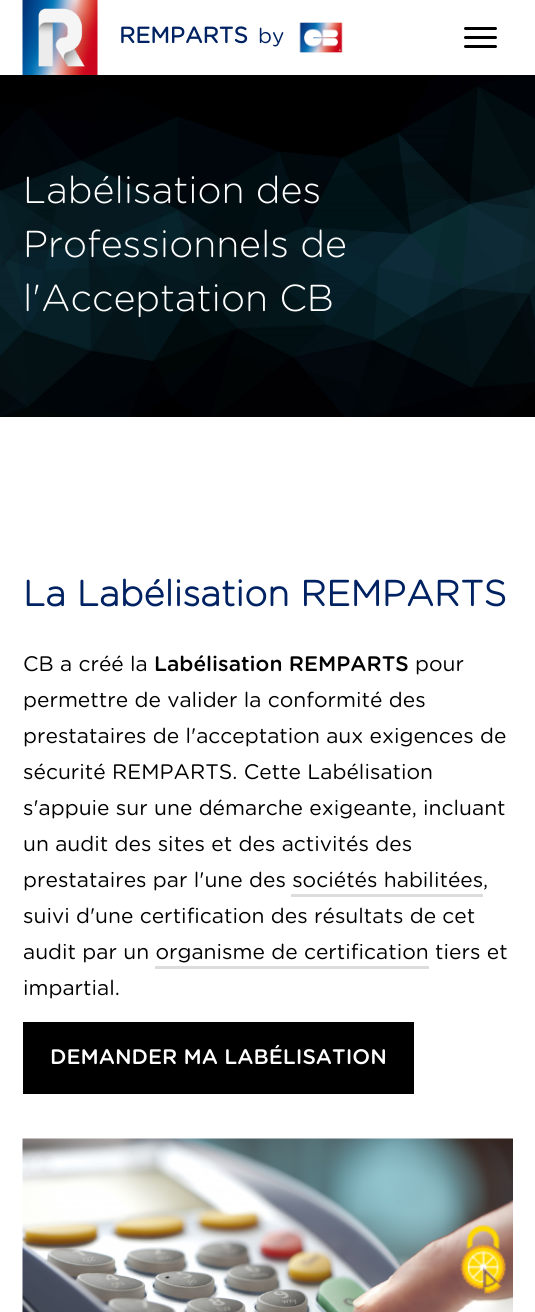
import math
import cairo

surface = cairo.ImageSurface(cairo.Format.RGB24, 535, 1312)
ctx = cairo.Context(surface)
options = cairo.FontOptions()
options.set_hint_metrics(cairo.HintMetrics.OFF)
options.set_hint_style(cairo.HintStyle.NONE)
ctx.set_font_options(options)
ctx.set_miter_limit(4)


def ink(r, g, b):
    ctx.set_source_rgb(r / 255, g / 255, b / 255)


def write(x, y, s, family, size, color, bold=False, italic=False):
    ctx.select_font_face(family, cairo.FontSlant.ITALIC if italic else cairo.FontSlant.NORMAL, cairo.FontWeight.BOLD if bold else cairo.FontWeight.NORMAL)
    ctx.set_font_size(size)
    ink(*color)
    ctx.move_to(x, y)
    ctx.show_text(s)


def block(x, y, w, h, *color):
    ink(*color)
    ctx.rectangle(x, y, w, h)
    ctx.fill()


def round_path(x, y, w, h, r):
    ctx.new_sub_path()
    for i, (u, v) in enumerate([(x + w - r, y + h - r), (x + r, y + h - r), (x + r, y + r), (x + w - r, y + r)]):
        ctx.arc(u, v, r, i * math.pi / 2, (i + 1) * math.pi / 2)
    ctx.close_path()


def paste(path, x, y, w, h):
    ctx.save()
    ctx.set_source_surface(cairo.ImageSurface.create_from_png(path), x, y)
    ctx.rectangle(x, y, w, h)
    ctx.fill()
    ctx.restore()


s1 = dict(family="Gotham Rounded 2", size=22.5, color=(0, 34, 98), bold=True)
s2 = dict(family="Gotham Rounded", size=21, color=(0, 34, 98))
s3 = dict(family="Gotham Rounded Light", size=37.5, color=(255, 255, 255))
s4 = dict(family="Gotham Rounded", size=36, color=(0, 34, 98), bold=True)
s5 = dict(family="Gotham Rounded", size=21, color=(0, 0, 0))
s6 = dict(family="Gotham Rounded Medium", size=21, color=(0, 0, 0))
s7 = dict(family="Gotham Rounded Medium", size=21, color=(255, 255, 255))

ink(255, 255, 255)
ctx.paint()
paste("pic1.png", 22, 0, 76, 75)
write(119, 43, "REMPARTS", **s1)
write(258, 43, "by", **s2)
paste("pic2.png", 299, 22, 44, 31)
ink(0, 0, 0)
round_path(464, 27, 33, 3, 1.5)
ctx.fill()
round_path(464, 36, 33, 3, 1.5)
ctx.fill()
round_path(464, 45, 33, 3, 1.5)
ctx.fill()
paste("pic3.png", 0, 75, 535, 342)
write(23, 203, "Labélisation des", **s3)
write(23, 257, "Professionnels de", **s3)
write(23, 311, "l'Acceptation CB", **s3)
write(23, 606, "La Labélisation REMPARTS", **s4)
write(23, 671, "CB a créé la", **s5)
write(154, 671, "Labélisation REMPARTS", **s6)
write(415, 671, "pour", **s5)
write(23, 707, "permettre de valider la conformité des", **s5)
write(23, 743, "prestataires de l'acceptation aux exigences de", **s5)
write(23, 779, "sécurité REMPARTS. Cette Labélisation", **s5)
write(23, 815, "s'appuie sur une démarche exigeante, incluant", **s5)
write(23, 851, "un audit des sites et des activités des", **s5)
write(23, 887, "prestataires par l'une des sociétés habilitées", **s5)
write(483, 887, ",", **s5)
block(291, 894, 192, 3, 220, 220, 220)
write(23, 923, "suivi d'une certification des résultats de cet", **s5)
write(23, 959, "audit par un organisme de certification", **s5)
write(435, 959, "tiers et", **s5)
block(155, 966, 274, 3, 220, 220, 220)
write(23, 995, "impartial.", **s5)
block(23, 1022, 391, 72, 0, 0, 0)
write(50, 1064, "DEMANDER MA LABÉLISATION", **s7)
paste("pic4.png", 22, 1138, 491, 174)
paste("pic5.png", 460, 1225, 46, 70)
surface.write_to_png("screenshot.png")
